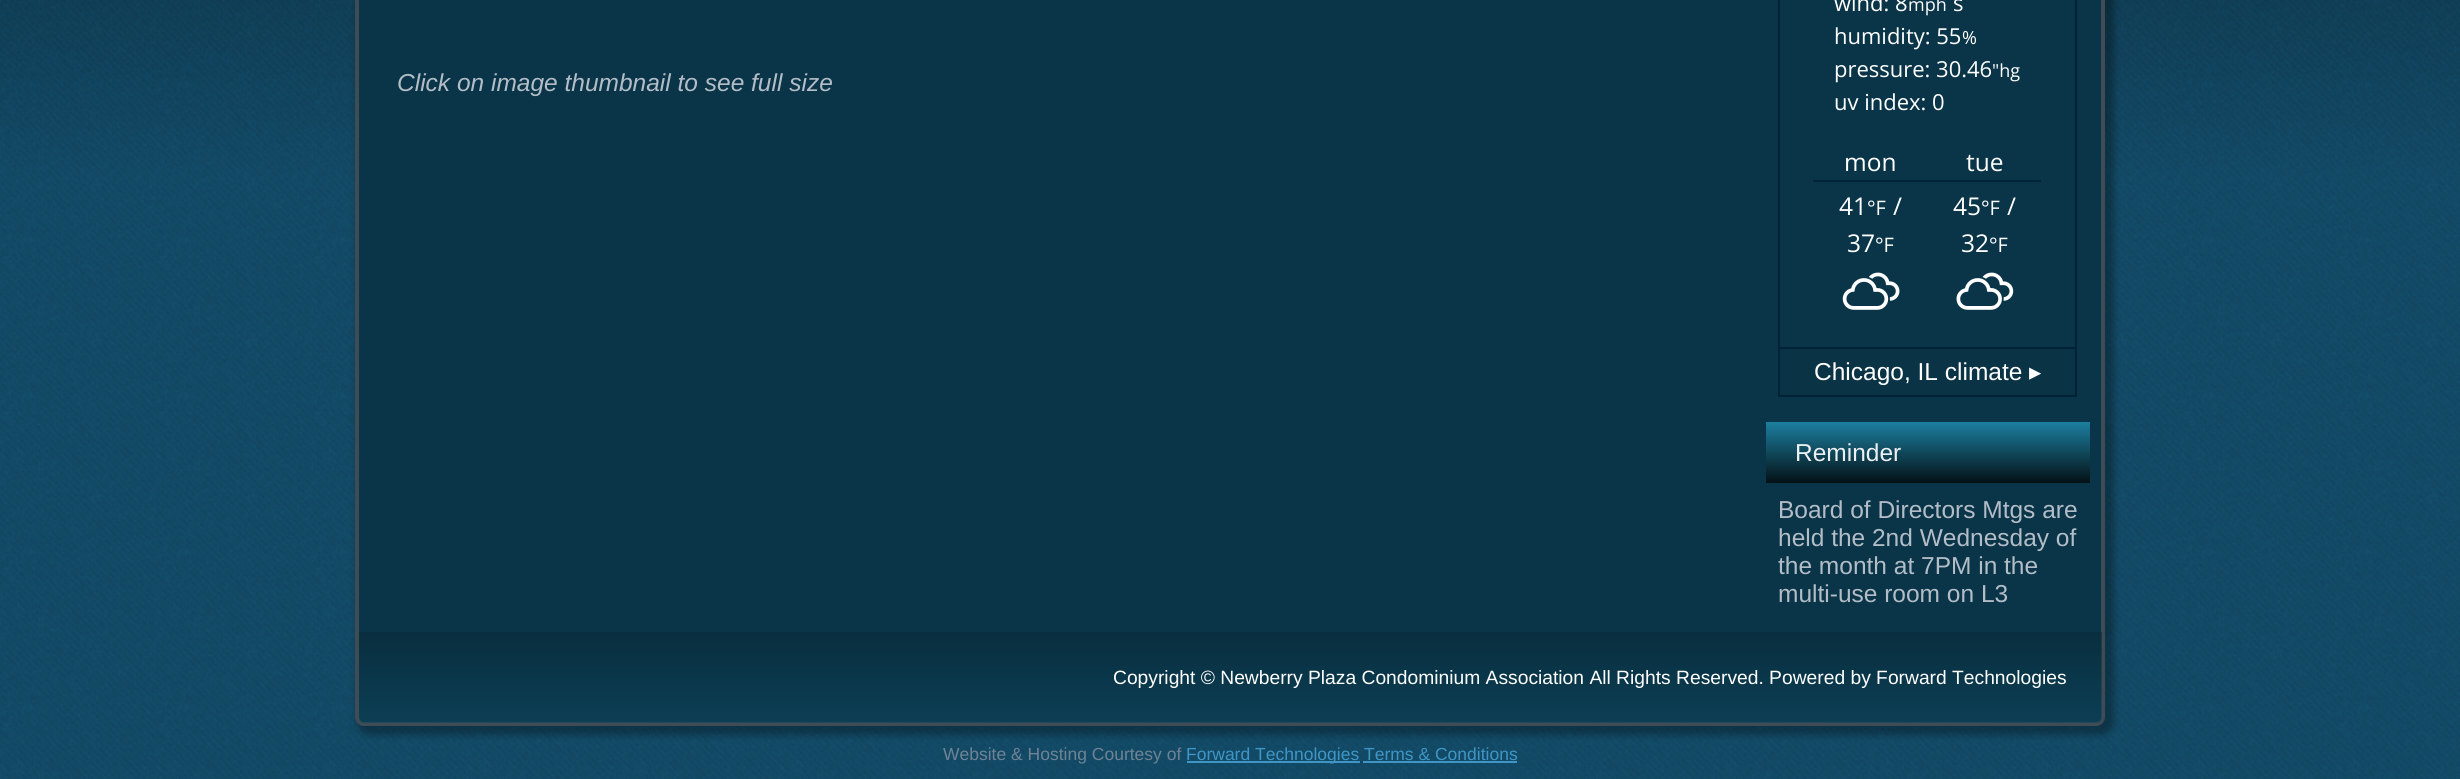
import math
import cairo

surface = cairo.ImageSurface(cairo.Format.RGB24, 2460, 779)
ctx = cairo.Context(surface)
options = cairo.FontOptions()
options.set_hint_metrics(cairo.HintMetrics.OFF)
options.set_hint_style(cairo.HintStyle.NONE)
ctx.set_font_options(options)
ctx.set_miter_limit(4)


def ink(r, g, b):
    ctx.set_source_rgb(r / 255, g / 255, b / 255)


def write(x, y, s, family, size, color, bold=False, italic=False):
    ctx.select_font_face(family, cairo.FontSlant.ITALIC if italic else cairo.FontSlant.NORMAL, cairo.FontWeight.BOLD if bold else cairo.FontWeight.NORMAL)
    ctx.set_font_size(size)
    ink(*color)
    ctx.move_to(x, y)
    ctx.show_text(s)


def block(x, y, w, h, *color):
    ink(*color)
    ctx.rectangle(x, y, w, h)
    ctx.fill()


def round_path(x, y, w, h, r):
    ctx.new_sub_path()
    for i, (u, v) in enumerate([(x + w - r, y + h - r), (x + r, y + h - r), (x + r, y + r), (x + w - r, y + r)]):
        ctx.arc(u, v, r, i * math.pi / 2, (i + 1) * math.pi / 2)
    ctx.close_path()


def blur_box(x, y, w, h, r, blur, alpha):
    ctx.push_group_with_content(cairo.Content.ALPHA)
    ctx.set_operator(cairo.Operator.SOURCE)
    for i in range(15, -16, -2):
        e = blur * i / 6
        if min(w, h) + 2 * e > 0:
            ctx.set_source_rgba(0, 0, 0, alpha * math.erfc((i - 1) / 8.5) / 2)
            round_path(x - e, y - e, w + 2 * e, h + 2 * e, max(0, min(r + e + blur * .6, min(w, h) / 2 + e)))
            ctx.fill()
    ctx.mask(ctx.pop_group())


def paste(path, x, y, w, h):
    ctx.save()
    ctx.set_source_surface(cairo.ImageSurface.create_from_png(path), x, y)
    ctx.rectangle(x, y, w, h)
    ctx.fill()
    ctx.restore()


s1 = dict(family="Liberation Sans", size=24.5, color=(179, 189, 199), italic=True)
s2 = dict(family="Open Sans", size=22, color=(255, 255, 255))
s3 = dict(family="Open Sans", size=18, color=(255, 255, 255))
s4 = dict(family="Open Sans", size=24.5, color=(255, 255, 255))
s5 = dict(family="Open Sans", size=20, color=(255, 255, 255))
s6 = dict(family="Liberation Sans", size=24.5, color=(255, 255, 255))
s7 = dict(family="DejaVu Sans", size=24.5, color=(255, 255, 255))
s8 = dict(family="Liberation Sans", size=24.5, color=(237, 240, 242))
s9 = dict(family="Liberation Sans", size=24.5, color=(179, 189, 199))
s10 = dict(family="Liberation Sans", size=19.25, color=(255, 255, 255))
s11 = dict(family="Liberation Sans", size=17.5, color=(111, 131, 149))
s12 = dict(family="Liberation Sans", size=17.5, color=(63, 150, 198))

ink(255, 255, 255)
ctx.paint()
paste("pic1.png", 0, 0, 2460, 779)
ink(0, 0, 0)
blur_box(357, -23, 1757, 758, 12, 3.5, 0.3)
ink(10, 53, 72)
round_path(357, -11, 1746, 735, 7)
ctx.fill_preserve()
ink(63, 75, 85)
ctx.set_line_width(4)
ctx.stroke()
write(397, 91, "Click on image thumbnail to see full size", **s1)
ctx.rectangle(1779, -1, 297, 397)
ink(0, 36, 55)
ctx.set_line_width(2)
ctx.stroke()
write(1834, 11, "wind: 8", **s2)
write(1908, 11, "mph", **s3)
write(1953, 11, "s", **s2)
write(1834, 44, "humidity: 55", **s2)
write(1962, 44, "%", **s3)
write(1834, 77, "pressure: 30.46", **s2)
write(1992, 77, "\"hg", **s3)
write(1834, 110, "uv index: 0", **s2)
block(1813, 180, 228, 2, 0, 36, 55)
write(1844, 171, "mon", **s4)
write(1966, 171, "tue", **s4)
write(1839, 215, "41", **s4)
write(1867, 215, "°F", **s5)
write(1893, 215, "/", **s4)
write(1847, 252, "37", **s4)
write(1875, 252, "°F", **s5)
paste("pic2.png", 1842, 272, 58, 38)
write(1953, 215, "45", **s4)
write(1981, 215, "°F", **s5)
write(2007, 215, "/", **s4)
write(1961, 252, "32", **s4)
write(1989, 252, "°F", **s5)
paste("pic3.png", 1956, 272, 58, 38)
ctx.set_source_rgba(0, 0, 0, 0.05)
ctx.rectangle(1780, 349, 296, 47)
ctx.fill()
block(1780, 347, 296, 2, 0, 36, 55)
write(1814, 380, "Chicago, IL climate", **s6)
write(2029, 380, "▸", **s7)
gradient = cairo.LinearGradient(1928, 422, 1928, 483)
gradient.add_color_stop_rgba(0, 0.11, 0.498, 0.627, 1)
gradient.add_color_stop_rgba(1, 0.016, 0.067, 0.086, 1)
ctx.set_source(gradient)
ctx.rectangle(1766, 422, 324, 61)
ctx.fill()
write(1795, 461, "Reminder", **s8)
write(1778, 518, "Board of Directors Mtgs are", **s9)
write(1778, 546, "held the 2nd Wednesday of", **s9)
write(1778, 574, "the month at 7PM in the", **s9)
write(1778, 602, "multi-use room on L3", **s9)
gradient = cairo.LinearGradient(1230, 632, 1230, 723)
gradient.add_color_stop_rgba(0, 0.027, 0.157, 0.212, 0.53)
gradient.add_color_stop_rgba(1, 0.051, 0.275, 0.369, 0.53)
ctx.set_source(gradient)
ctx.new_path()
ctx.move_to(359, 632)
ctx.line_to(2102, 632)
ctx.line_to(2102, 718)
ctx.curve_to(2102, 721, 2100, 723, 2097, 723)
ctx.line_to(364, 723)
ctx.curve_to(361, 723, 359, 721, 359, 718)
ctx.close_path()
ctx.fill()
write(1113, 684, "Copyright © Newberry Plaza Condominium Association All Rights Reserved. Powered by Forward Technologies", **s10)
write(943, 760, "Website & Hosting Courtesy of", **s11)
block(1187, 761, 173, 2, 63, 150, 198)
write(1186, 760, "Forward Technologies Terms & Conditions", **s12)
block(1363, 761, 154, 2, 63, 150, 198)
surface.write_to_png("screenshot.png")
